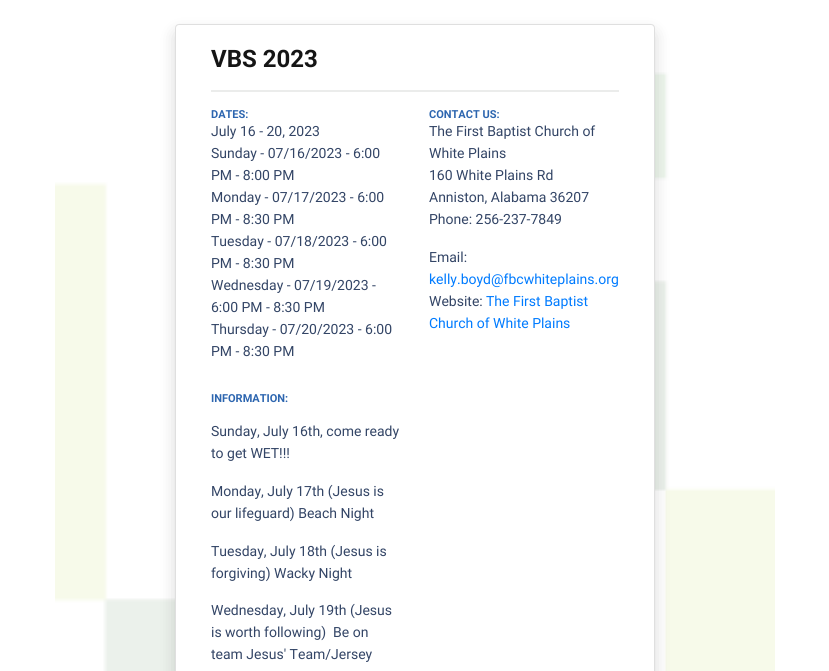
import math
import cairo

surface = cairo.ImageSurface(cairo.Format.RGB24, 829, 671)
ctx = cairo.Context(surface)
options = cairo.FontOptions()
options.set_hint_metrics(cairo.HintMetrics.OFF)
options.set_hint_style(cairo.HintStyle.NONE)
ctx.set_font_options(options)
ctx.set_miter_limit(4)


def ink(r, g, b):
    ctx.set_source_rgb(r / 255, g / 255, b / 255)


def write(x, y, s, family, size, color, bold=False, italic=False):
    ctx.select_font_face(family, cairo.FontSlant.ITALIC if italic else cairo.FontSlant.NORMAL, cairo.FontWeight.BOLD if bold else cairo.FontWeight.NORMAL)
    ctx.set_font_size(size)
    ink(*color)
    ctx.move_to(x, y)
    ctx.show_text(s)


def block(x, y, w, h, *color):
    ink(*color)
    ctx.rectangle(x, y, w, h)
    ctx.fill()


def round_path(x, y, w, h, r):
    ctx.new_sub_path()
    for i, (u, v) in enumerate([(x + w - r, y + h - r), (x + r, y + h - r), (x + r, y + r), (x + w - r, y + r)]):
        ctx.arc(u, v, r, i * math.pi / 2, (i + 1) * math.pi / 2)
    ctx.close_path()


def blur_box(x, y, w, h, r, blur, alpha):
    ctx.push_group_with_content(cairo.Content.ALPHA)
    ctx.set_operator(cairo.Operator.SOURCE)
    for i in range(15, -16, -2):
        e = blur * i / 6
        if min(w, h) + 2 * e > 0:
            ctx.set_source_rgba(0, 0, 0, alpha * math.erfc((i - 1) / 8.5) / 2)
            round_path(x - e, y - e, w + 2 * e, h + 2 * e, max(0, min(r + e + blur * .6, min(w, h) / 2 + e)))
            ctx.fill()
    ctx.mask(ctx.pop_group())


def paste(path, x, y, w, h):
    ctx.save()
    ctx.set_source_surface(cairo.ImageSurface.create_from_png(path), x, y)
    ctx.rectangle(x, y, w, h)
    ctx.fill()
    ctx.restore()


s1 = dict(family="Roboto", size=24, color=(21, 21, 21), bold=True)
s2 = dict(family="Roboto", size=11, color=(44, 101, 175), bold=True)
s3 = dict(family="Roboto", size=14, color=(51, 69, 102))
s4 = dict(family="Roboto", size=14, color=(0, 123, 255))

ink(255, 255, 255)
ctx.paint()
paste("pic1.png", 55, 72, 720, 599)
ink(0, 0, 0)
blur_box(175, 32, 480, 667, 4, 8, 0.15)
ink(255, 255, 255)
round_path(175.5, 24.5, 479, 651, 3.5)
ctx.fill_preserve()
ink(223, 223, 223)
ctx.set_line_width(1)
ctx.stroke()
write(211, 67, "VBS 2023", **s1)
block(211, 90, 408, 2, 235, 236, 235)
write(211, 118, "DATES:", **s2)
write(211, 136, "July 16 - 20, 2023", **s3)
write(211, 158, "Sunday - 07/16/2023 - 6:00", **s3)
write(211, 180, "PM - 8:00 PM", **s3)
write(211, 202, "Monday - 07/17/2023 - 6:00", **s3)
write(211, 224, "PM - 8:30 PM", **s3)
write(211, 246, "Tuesday - 07/18/2023 - 6:00", **s3)
write(211, 268, "PM - 8:30 PM", **s3)
write(211, 290, "Wednesday - 07/19/2023 -", **s3)
write(211, 312, "6:00 PM - 8:30 PM", **s3)
write(211, 334, "Thursday - 07/20/2023 - 6:00", **s3)
write(211, 356, "PM - 8:30 PM", **s3)
write(211, 402, "INFORMATION:", **s2)
write(211, 436, "Sunday, July 16th, come ready", **s3)
write(211, 458, "to get WET!!!", **s3)
write(211, 496, "Monday, July 17th (Jesus is", **s3)
write(211, 518, "our lifeguard) Beach Night", **s3)
write(211, 556, "Tuesday, July 18th (Jesus is", **s3)
write(211, 578, "forgiving) Wacky Night", **s3)
write(211, 615, "Wednesday, July 19th (Jesus", **s3)
write(211, 637, "is worth following)  Be on", **s3)
write(211, 659, "team Jesus' Team/Jersey", **s3)
write(429, 118, "CONTACT US:", **s2)
write(429, 136, "The First Baptist Church of", **s3)
write(429, 158, "White Plains", **s3)
write(429, 180, "160 White Plains Rd", **s3)
write(429, 202, "Anniston, Alabama 36207", **s3)
write(429, 224, "Phone: 256-237-7849", **s3)
write(429, 262, "Email:", **s3)
write(429, 284, "kelly.boyd@fbcwhiteplains.org", **s4)
write(429, 306, "Website:", **s3)
write(486, 306, "The First Baptist", **s4)
write(429, 328, "Church of White Plains", **s4)
surface.write_to_png("screenshot.png")
